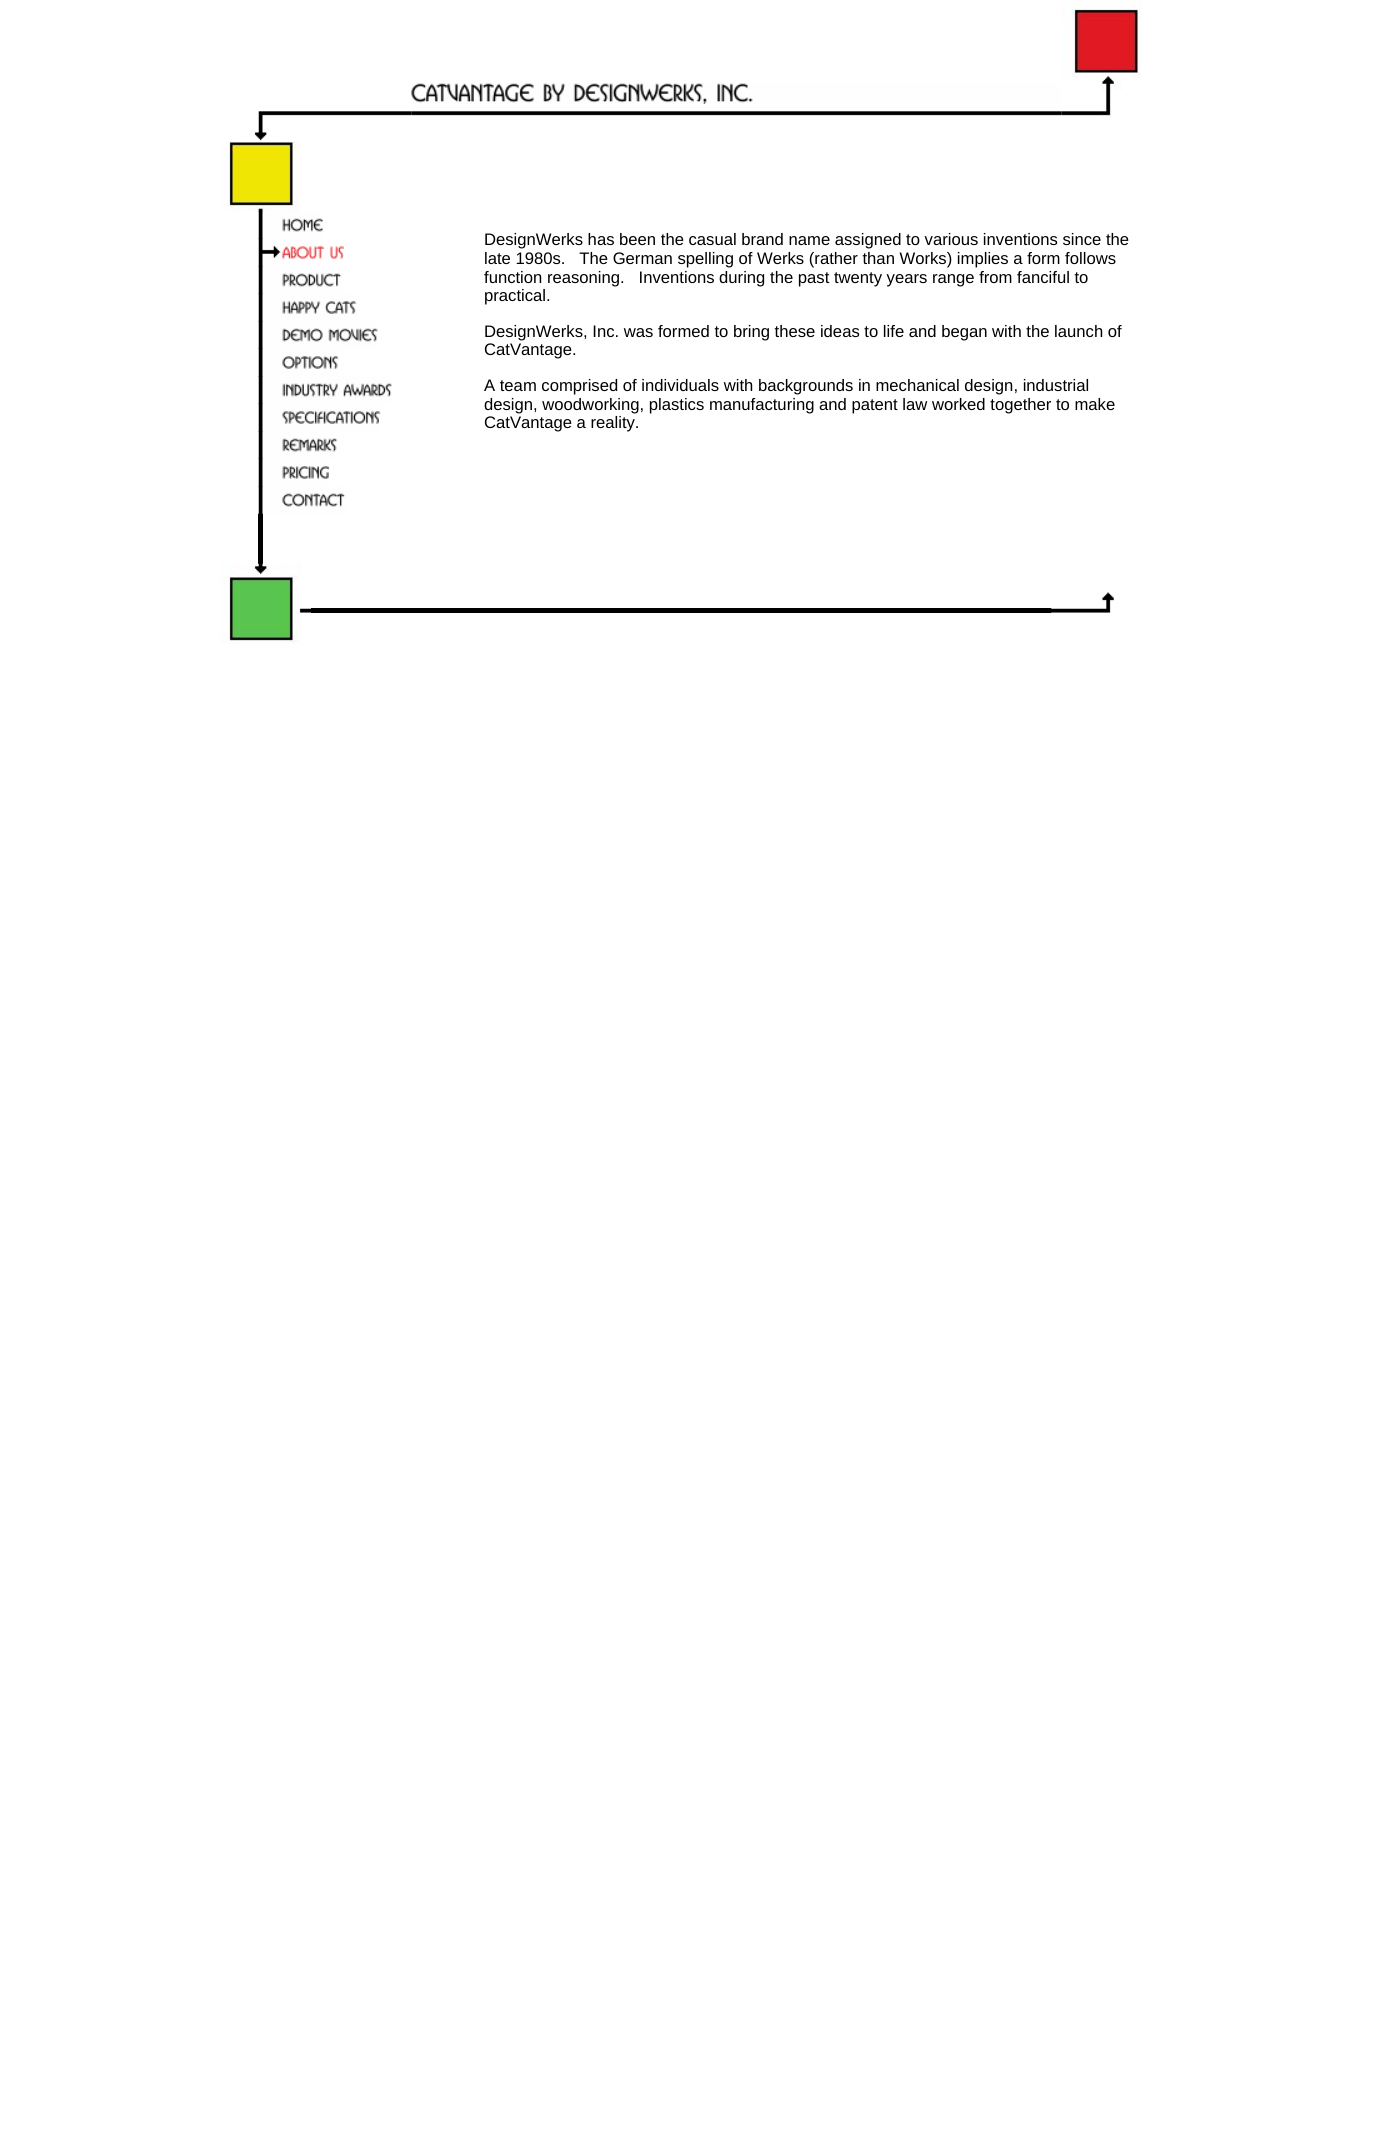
import math
import cairo

surface = cairo.ImageSurface(cairo.Format.RGB24, 1389, 2151)
ctx = cairo.Context(surface)
options = cairo.FontOptions()
options.set_hint_metrics(cairo.HintMetrics.OFF)
options.set_hint_style(cairo.HintStyle.NONE)
ctx.set_font_options(options)
ctx.set_miter_limit(4)


def ink(r, g, b):
    ctx.set_source_rgb(r / 255, g / 255, b / 255)


def write(x, y, s, family, size, color, bold=False, italic=False):
    ctx.select_font_face(family, cairo.FontSlant.ITALIC if italic else cairo.FontSlant.NORMAL, cairo.FontWeight.BOLD if bold else cairo.FontWeight.NORMAL)
    ctx.set_font_size(size)
    ink(*color)
    ctx.move_to(x, y)
    ctx.show_text(s)


def block(x, y, w, h, *color):
    ink(*color)
    ctx.rectangle(x, y, w, h)
    ctx.fill()


def paste(path, x, y, w, h):
    ctx.save()
    ctx.set_source_surface(cairo.ImageSurface.create_from_png(path), x, y)
    ctx.rectangle(x, y, w, h)
    ctx.fill()
    ctx.restore()


s1 = dict(family="Liberation Sans", size=16.65, color=(0, 0, 0))

ink(255, 255, 255)
ctx.paint()
paste("pic2.png", 1061, 0, 81, 120)
paste("pic1.png", 411, 83, 651, 33)
paste("pic3.png", 254, 111, 158, 30)
block(258, 211, 5, 353, 0, 0, 0)
paste("pic4.png", 220, 141, 80, 71)
paste("pic5.png", 258, 211, 65, 28)
paste("pic6.png", 258, 238, 86, 29)
paste("pic7.png", 258, 266, 84, 28)
paste("pic8.png", 258, 293, 99, 29)
paste("pic9.png", 258, 321, 120, 28)
paste("pic10.png", 258, 348, 81, 29)
paste("pic11.png", 258, 376, 134, 28)
paste("pic12.png", 258, 403, 123, 29)
paste("pic13.png", 258, 431, 80, 28)
paste("pic14.png", 258, 458, 72, 29)
paste("pic15.png", 258, 486, 88, 28)
write(484, 245, "DesignWerks has been the casual brand name assigned to various inventions since the", **s1)
write(484, 264, "late 1980s.   The German spelling of Werks (rather than Works) implies a form follows", **s1)
write(484, 283, "function reasoning.   Inventions during the past twenty years range from fanciful to", **s1)
write(484, 301, "practical.", **s1)
write(484, 337, "DesignWerks, Inc. was formed to bring these ideas to life and began with the launch of", **s1)
write(484, 355, "CatVantage.", **s1)
write(484, 391, "A team comprised of individuals with backgrounds in mechanical design, industrial", **s1)
write(484, 410, "design, woodworking, plastics manufacturing and patent law worked together to make", **s1)
write(484, 428, "CatVantage a reality.", **s1)
paste("pic16.png", 220, 563, 92, 81)
block(311, 608, 741, 5, 0, 0, 0)
paste("pic17.png", 1051, 592, 63, 21)
surface.write_to_png("screenshot.png")
